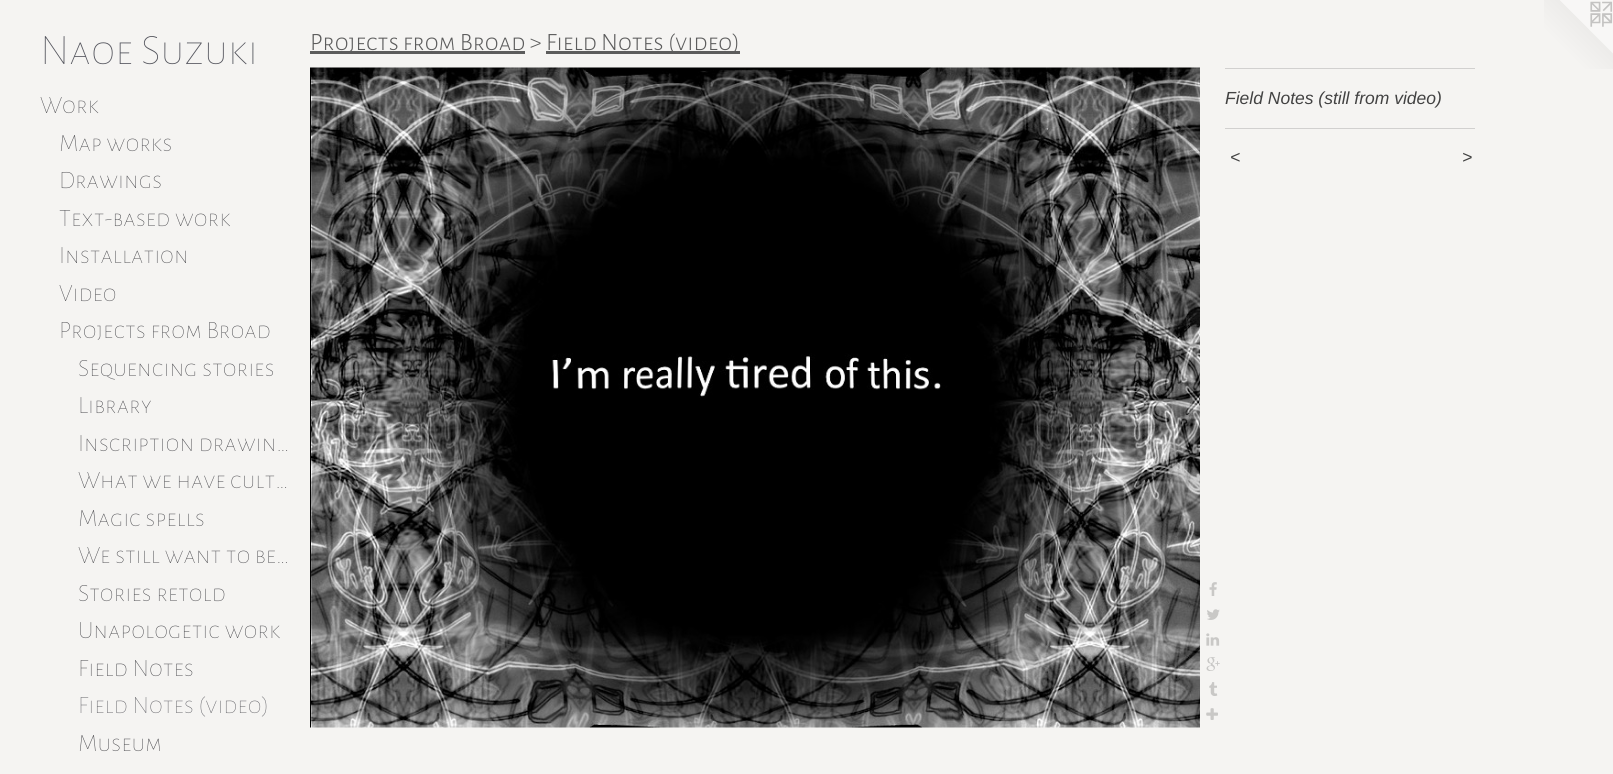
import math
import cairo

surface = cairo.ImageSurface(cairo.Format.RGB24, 1613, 774)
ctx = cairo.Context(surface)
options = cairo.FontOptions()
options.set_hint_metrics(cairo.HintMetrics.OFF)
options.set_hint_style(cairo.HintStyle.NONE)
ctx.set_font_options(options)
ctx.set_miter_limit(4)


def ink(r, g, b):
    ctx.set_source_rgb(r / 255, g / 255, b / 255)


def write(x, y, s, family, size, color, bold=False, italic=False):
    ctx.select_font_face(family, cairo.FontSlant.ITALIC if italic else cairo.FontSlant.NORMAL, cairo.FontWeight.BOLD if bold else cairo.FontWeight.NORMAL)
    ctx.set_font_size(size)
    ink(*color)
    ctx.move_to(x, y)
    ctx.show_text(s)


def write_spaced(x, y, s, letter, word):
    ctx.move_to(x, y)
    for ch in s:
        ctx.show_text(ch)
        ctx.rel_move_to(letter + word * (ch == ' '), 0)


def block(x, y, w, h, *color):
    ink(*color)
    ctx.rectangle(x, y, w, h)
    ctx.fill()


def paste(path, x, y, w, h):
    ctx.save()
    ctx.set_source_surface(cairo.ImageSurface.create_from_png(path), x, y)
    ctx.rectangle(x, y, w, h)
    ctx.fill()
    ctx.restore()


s1 = dict(family="Alegreya Sans SC Thin", size=43.75, color=(85, 86, 94))
s2 = dict(family="Alegreya Sans SC Thin", size=25, color=(72, 72, 76))
s3 = dict(family="Alegreya Sans SC Thin", size=25, color=(97, 97, 102))
s4 = dict(family="Alegreya Sans SC Light", size=25, color=(92, 92, 92))
s5 = dict(family="Liberation Sans", size=17.5, color=(66, 66, 66), italic=True)

ink(245, 244, 242)
ctx.paint()
write(40, 64, "Naoe Suzuki", **s1)
write(40, 113, "Work", **s2)
write(59, 151, "Map works", **s2)
write(59, 188, "Drawings", **s2)
write(59, 226, "Text-based work", **s2)
write(59, 263, "Installation", **s2)
write(59, 301, "Video", **s2)
write(59, 338, "Projects from Broad", **s2)
write(78, 376, "Sequencing stories", **s2)
write(78, 413, "Library", **s2)
write(78, 451, "Inscription drawin…", **s2)
write(78, 488, "What we have cult…", **s2)
write(78, 526, "Magic spells", **s2)
write(78, 563, "We still want to be…", **s2)
write(78, 601, "Stories retold", **s2)
write(78, 638, "Unapologetic work", **s2)
write(78, 676, "Field Notes", **s2)
write(78, 713, "Field Notes (video)", **s3)
write(78, 751, "Museum", **s2)
block(310, 51, 215, 3, 92, 92, 92)
write(310, 50, "Projects from Broad >", **s4)
block(546, 51, 194, 3, 92, 92, 92)
write(546, 50, "Field Notes (video)", **s4)
paste("pic1.png", 310, 67, 890, 661)
paste("pic2.png", 1209, 582, 8, 14)
paste("pic3.png", 1207, 609, 13, 11)
paste("pic4.png", 1206, 633, 14, 13)
paste("pic5.png", 1206, 657, 14, 14)
paste("pic6.png", 1209, 682, 9, 14)
paste("pic7.png", 1206, 708, 12, 12)
block(1225, 68, 250, 1, 209, 208, 207)
write(1225, 104, "Field Notes (still from video)", **s5)
block(1225, 128, 250, 1, 209, 208, 207)
ink(66, 66, 66)
write_spaced(1230, 163, "<", 1, 0)
write_spaced(1462, 163, ">", 1, 0)
paste("pic8.png", 1544, 0, 69, 69)
surface.write_to_png("screenshot.png")
